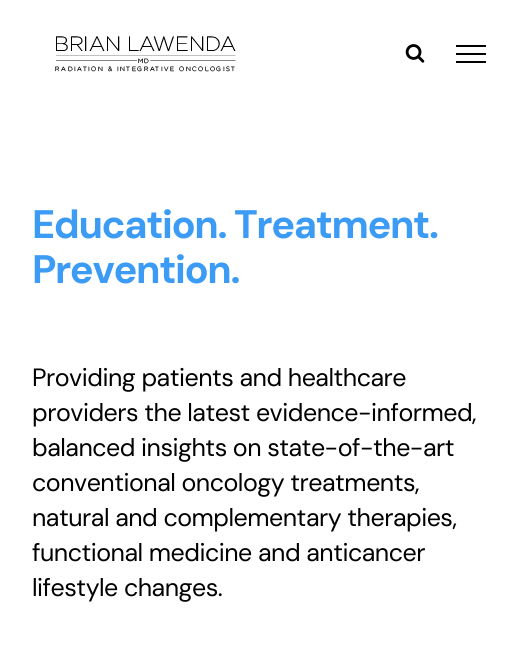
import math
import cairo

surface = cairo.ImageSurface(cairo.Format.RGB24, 516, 658)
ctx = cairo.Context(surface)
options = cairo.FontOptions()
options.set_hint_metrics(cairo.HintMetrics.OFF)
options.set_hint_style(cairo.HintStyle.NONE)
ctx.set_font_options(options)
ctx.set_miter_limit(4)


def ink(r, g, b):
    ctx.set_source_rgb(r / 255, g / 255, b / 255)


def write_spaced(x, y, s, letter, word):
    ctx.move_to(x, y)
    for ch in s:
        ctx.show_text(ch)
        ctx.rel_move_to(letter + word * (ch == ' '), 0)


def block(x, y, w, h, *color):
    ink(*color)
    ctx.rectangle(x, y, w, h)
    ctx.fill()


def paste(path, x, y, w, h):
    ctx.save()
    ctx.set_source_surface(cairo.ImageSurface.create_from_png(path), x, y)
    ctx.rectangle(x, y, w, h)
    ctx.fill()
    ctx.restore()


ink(255, 255, 255)
ctx.paint()
paste("pic1.png", 55, 36, 181, 36)
paste("pic2.png", 405, 44, 20, 19)
block(456, 45, 30, 2, 0, 0, 0)
block(456, 53, 30, 2, 0, 0, 0)
block(456, 61, 30, 2, 0, 0, 0)
ctx.select_font_face("DM Sans", cairo.FontSlant.NORMAL, cairo.FontWeight.BOLD)
ctx.set_font_size(39.75)
ink(59, 155, 245)
write_spaced(32, 238, "Education. Treatment.", -1.4, 0)
write_spaced(32, 283, "Prevention.", -1.4, 0)
ctx.select_font_face("DM Sans")
ctx.set_font_size(25)
ink(0, 0, 0)
write_spaced(32, 386, "Providing patients and healthcare", -0.5, 0)
write_spaced(32, 421, "providers the latest evidence-informed,", -0.5, 0)
write_spaced(32, 456, "balanced insights on state-of-the-art", -0.5, 0)
write_spaced(32, 491, "conventional oncology treatments,", -0.5, 0)
write_spaced(32, 526, "natural and complementary therapies,", -0.5, 0)
write_spaced(32, 561, "functional medicine and anticancer", -0.5, 0)
write_spaced(32, 596, "lifestyle changes.", -0.5, 0)
surface.write_to_png("screenshot.png")
